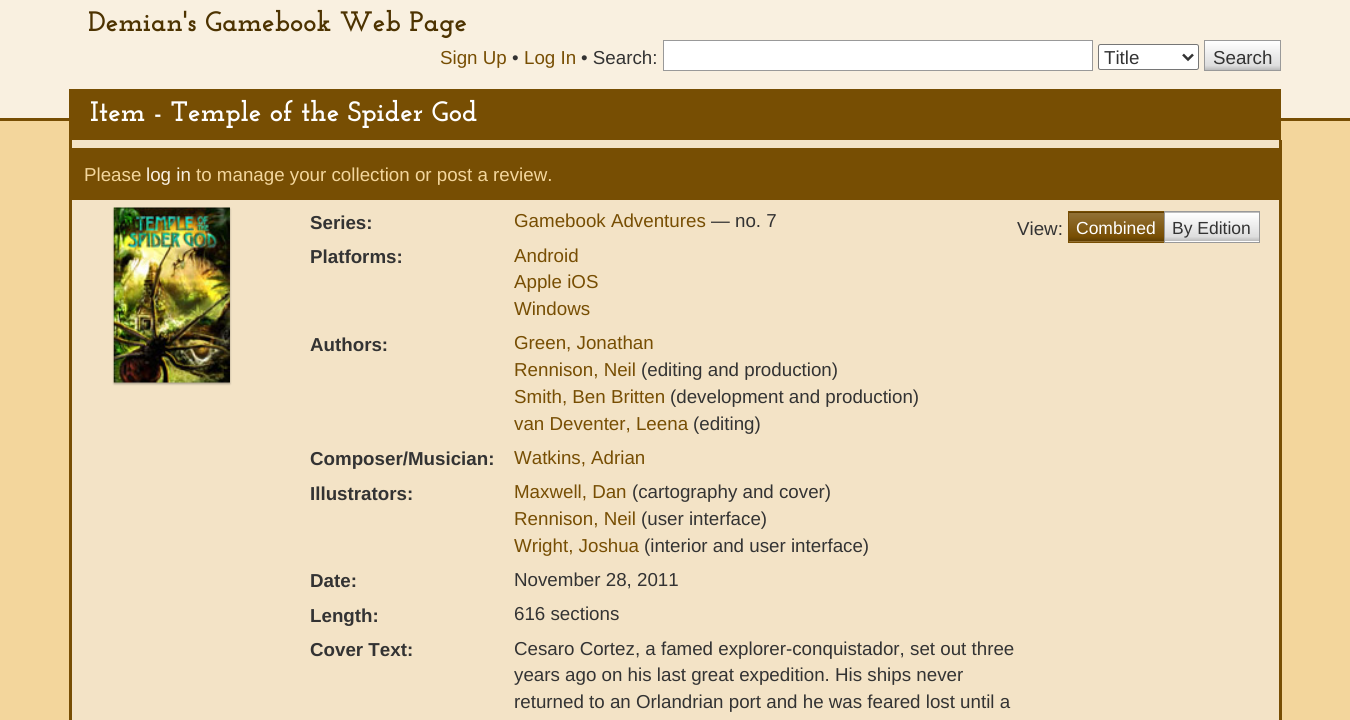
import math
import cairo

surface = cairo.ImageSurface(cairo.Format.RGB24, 1350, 720)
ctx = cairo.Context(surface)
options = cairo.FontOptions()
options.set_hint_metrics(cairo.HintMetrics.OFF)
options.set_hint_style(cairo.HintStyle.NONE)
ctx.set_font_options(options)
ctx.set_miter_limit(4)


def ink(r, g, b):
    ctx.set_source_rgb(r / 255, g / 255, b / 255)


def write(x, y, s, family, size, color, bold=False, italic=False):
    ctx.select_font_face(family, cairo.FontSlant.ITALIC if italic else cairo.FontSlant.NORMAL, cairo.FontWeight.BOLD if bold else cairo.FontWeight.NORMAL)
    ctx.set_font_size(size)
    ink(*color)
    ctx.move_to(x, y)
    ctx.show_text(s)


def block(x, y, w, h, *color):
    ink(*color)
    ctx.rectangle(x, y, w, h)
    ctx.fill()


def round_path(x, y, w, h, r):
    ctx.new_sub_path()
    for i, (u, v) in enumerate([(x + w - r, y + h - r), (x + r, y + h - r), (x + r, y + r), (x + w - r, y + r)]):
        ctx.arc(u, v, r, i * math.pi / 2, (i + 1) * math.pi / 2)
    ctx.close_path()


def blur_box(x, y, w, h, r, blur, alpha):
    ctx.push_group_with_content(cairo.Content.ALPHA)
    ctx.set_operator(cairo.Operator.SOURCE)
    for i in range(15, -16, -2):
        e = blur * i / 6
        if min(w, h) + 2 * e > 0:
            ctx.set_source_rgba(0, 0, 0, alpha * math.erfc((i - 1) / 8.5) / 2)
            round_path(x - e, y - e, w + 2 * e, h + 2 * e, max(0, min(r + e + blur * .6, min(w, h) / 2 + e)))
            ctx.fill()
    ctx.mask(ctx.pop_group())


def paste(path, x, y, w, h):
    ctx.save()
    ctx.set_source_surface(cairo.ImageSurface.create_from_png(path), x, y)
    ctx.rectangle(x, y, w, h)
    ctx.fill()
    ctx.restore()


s1 = dict(family="Josefin Slab", size=28.1, color=(77, 51, 1), bold=True)
s2 = dict(family="Liberation Sans", size=18.75, color=(119, 78, 3))
s3 = dict(family="Liberation Sans", size=18.75, color=(51, 51, 51))
s4 = dict(family="Josefin Slab", size=28.1, color=(255, 255, 255), bold=True)
s5 = dict(family="Liberation Sans", size=18.75, color=(243, 214, 156))
s6 = dict(family="Liberation Sans", size=18.75, color=(249, 240, 224))
s7 = dict(family="Liberation Sans", size=18.75, color=(51, 51, 51), bold=True)
s8 = dict(family="Liberation Sans", size=17.5, color=(255, 255, 255))
s9 = dict(family="Liberation Sans", size=17.5, color=(51, 51, 51))

ink(243, 214, 156)
ctx.paint()
block(0, 0, 1350, 118, 249, 240, 224)
block(0, 118, 1350, 3, 119, 78, 3)
write(88, 31, "Demian's Gamebook Web Page", **s1)
write(440, 64, "Sign Up", **s2)
write(512, 64, "•", **s3)
write(524, 64, "Log In", **s2)
write(581, 64, "• Search:", **s3)
ink(255, 255, 255)
ctx.rectangle(663.5, 40.5, 429, 30)
ctx.fill_preserve()
ink(153, 153, 153)
ctx.set_line_width(1)
ctx.stroke()
ink(255, 255, 255)
round_path(1098.5, 44.5, 100, 25, 2)
ctx.fill_preserve()
ink(118, 118, 118)
ctx.stroke()
ctx.new_path()
ctx.move_to(1183, 54.5)
ctx.line_to(1188, 59.5)
ctx.line_to(1193, 54.5)
ink(51, 51, 51)
ctx.set_line_width(2.5)
ctx.stroke()
write(1104, 64, "Title", **s3)
gradient = cairo.LinearGradient(1243, 41, 1243, 70)
gradient.add_color_stop_rgba(0, 1, 1, 1, 1)
gradient.add_color_stop_rgba(0.85, 0.867, 0.867, 0.867, 1)
gradient.add_color_stop_rgba(1, 0.733, 0.733, 0.733, 1)
ctx.set_source(gradient)
ctx.rectangle(1205, 41, 75, 29)
ctx.fill()
ctx.rectangle(1204.5, 40.5, 76, 30)
ink(153, 153, 153)
ctx.set_line_width(1)
ctx.stroke()
write(1213, 64, "Search", **s3)
block(72, 140, 1207, 580, 243, 227, 198)
block(69, 89, 1212, 51, 119, 78, 3)
write(90, 121, "Item - Temple of the Spider God", **s4)
block(1279, 140, 3, 580, 119, 78, 3)
block(69, 140, 3, 580, 119, 78, 3)
block(72, 148, 1207, 52, 119, 78, 3)
write(84, 181, "Please", **s5)
write(146, 181, "log in", **s6)
write(196, 181, "to manage your collection or post a review.", **s5)
ink(0, 0, 0)
blur_box(114, 209, 116, 175, 0, 1, 0.3)
paste("pic1.png", 113, 207, 117, 176)
write(310, 229, "Series:", **s7)
write(514, 227, "Gamebook Adventures", **s2)
write(711, 227, "— no. 7", **s3)
write(310, 263, "Platforms:", **s7)
write(514, 262, "Android", **s2)
write(514, 288, "Apple iOS", **s2)
write(514, 315, "Windows", **s2)
write(310, 351, "Authors:", **s7)
write(514, 349, "Green, Jonathan", **s2)
write(514, 376, "Rennison, Neil", **s2)
write(641, 376, "(editing and production)", **s3)
write(514, 403, "Smith, Ben Britten", **s2)
write(670, 403, "(development and production)", **s3)
write(514, 430, "van Deventer, Leena", **s2)
write(693, 430, "(editing)", **s3)
write(310, 465, "Composer/Musician:", **s7)
write(514, 464, "Watkins, Adrian", **s2)
write(310, 500, "Illustrators:", **s7)
write(514, 498, "Maxwell, Dan", **s2)
write(632, 498, "(cartography and cover)", **s3)
write(514, 525, "Rennison, Neil", **s2)
write(641, 525, "(user interface)", **s3)
write(514, 552, "Wright, Joshua", **s2)
write(644, 552, "(interior and user interface)", **s3)
write(310, 587, "Date:", **s7)
write(514, 586, "November 28, 2011", **s3)
write(310, 622, "Length:", **s7)
write(514, 620, "616 sections", **s3)
write(310, 656, "Cover Text:", **s7)
write(514, 655, "Cesaro Cortez, a famed explorer-conquistador, set out three", **s3)
write(514, 681, "years ago on his last great expedition. His ships never", **s3)
write(514, 708, "returned to an Orlandrian port and he was feared lost until a", **s3)
write(1017, 235, "View:", **s3)
gradient = cairo.LinearGradient(1116, 184, 1116, 213)
gradient.add_color_stop_rgba(0, 0.573, 0.443, 0.208, 1)
gradient.add_color_stop_rgba(0.85, 0.467, 0.306, 0.012, 1)
gradient.add_color_stop_rgba(1, 0.373, 0.243, 0.008, 1)
ctx.set_source(gradient)
ctx.rectangle(1068, 212, 97, 1)
ctx.fill()
gradient = cairo.LinearGradient(1116, 213, 1116, 241)
gradient.add_color_stop_rgba(0, 0.573, 0.443, 0.208, 1)
gradient.add_color_stop_rgba(0.85, 0.467, 0.306, 0.012, 1)
gradient.add_color_stop_rgba(1, 0.373, 0.243, 0.008, 1)
ctx.set_source(gradient)
ctx.rectangle(1069, 213, 95, 28)
ctx.fill()
gradient = cairo.LinearGradient(1116, 241, 1116, 270)
gradient.add_color_stop_rgba(0, 0.573, 0.443, 0.208, 1)
gradient.add_color_stop_rgba(0.85, 0.467, 0.306, 0.012, 1)
gradient.add_color_stop_rgba(1, 0.373, 0.243, 0.008, 1)
ctx.set_source(gradient)
ctx.rectangle(1068, 241, 97, 1)
ctx.fill()
ctx.rectangle(1068.5, 211.5, 96, 31)
ink(119, 78, 3)
ctx.stroke()
write(1076, 234, "Combined", **s8)
gradient = cairo.LinearGradient(1212, 184, 1212, 213)
gradient.add_color_stop_rgba(0, 1, 1, 1, 1)
gradient.add_color_stop_rgba(0.85, 0.867, 0.867, 0.867, 1)
gradient.add_color_stop_rgba(1, 0.733, 0.733, 0.733, 1)
ctx.set_source(gradient)
ctx.rectangle(1164, 212, 96, 1)
ctx.fill()
gradient = cairo.LinearGradient(1212, 213, 1212, 241)
gradient.add_color_stop_rgba(0, 1, 1, 1, 1)
gradient.add_color_stop_rgba(0.85, 0.867, 0.867, 0.867, 1)
gradient.add_color_stop_rgba(1, 0.733, 0.733, 0.733, 1)
ctx.set_source(gradient)
ctx.rectangle(1165, 213, 94, 28)
ctx.fill()
gradient = cairo.LinearGradient(1212, 241, 1212, 270)
gradient.add_color_stop_rgba(0, 1, 1, 1, 1)
gradient.add_color_stop_rgba(0.85, 0.867, 0.867, 0.867, 1)
gradient.add_color_stop_rgba(1, 0.733, 0.733, 0.733, 1)
ctx.set_source(gradient)
ctx.rectangle(1164, 241, 96, 1)
ctx.fill()
ctx.rectangle(1164.5, 211.5, 95, 31)
ink(153, 153, 153)
ctx.stroke()
write(1172, 234, "By Edition", **s9)
surface.write_to_png("screenshot.png")
